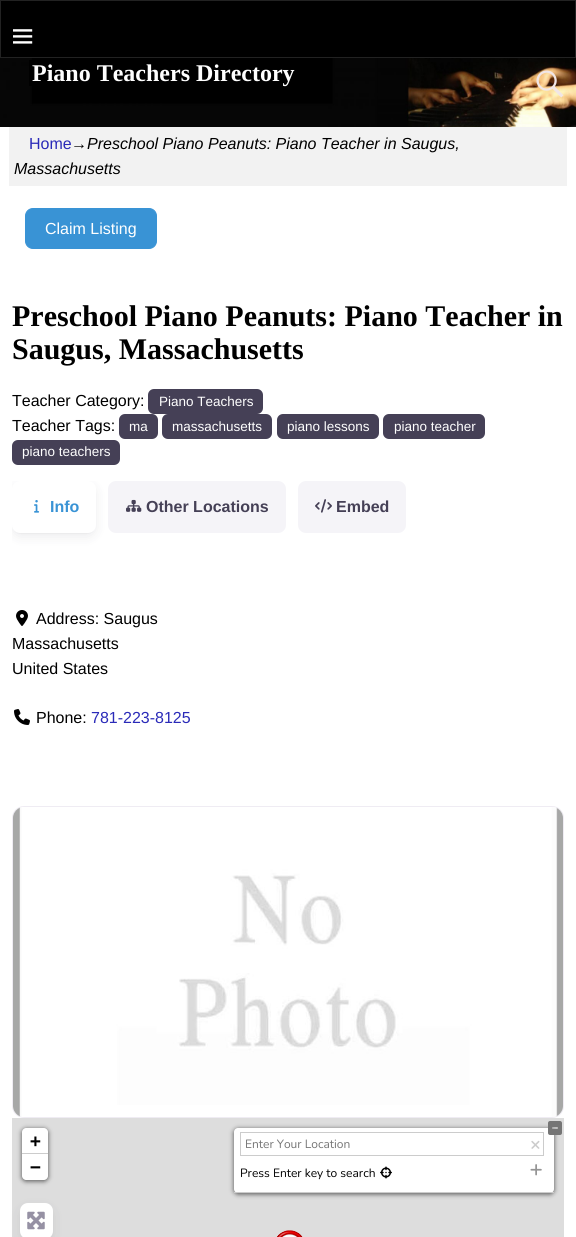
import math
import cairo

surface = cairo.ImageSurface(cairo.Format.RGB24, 576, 1237)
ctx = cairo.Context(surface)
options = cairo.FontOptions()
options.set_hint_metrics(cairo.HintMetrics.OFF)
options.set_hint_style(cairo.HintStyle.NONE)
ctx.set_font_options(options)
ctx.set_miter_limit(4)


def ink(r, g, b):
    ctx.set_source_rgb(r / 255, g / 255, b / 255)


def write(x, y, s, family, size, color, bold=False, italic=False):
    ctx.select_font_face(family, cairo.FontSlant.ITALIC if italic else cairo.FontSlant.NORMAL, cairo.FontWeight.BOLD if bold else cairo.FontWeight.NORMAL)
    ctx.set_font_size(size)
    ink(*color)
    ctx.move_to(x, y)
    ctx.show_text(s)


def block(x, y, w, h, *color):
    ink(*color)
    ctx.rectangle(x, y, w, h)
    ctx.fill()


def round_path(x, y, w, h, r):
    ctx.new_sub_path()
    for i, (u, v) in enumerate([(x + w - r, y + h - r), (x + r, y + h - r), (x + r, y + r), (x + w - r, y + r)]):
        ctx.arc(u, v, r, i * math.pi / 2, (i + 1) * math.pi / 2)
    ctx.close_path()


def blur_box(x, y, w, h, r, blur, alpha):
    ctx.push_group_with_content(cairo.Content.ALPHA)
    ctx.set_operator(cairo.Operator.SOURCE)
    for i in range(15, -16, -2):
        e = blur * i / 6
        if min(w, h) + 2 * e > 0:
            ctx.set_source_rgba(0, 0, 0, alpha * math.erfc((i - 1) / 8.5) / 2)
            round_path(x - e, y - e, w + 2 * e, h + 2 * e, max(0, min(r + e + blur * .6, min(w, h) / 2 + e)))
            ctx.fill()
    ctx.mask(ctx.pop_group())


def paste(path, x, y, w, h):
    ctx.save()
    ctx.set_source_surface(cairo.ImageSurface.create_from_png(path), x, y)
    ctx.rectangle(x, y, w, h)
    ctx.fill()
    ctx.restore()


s1 = dict(family="Liberation Serif", size=24, color=(255, 255, 255), bold=True)
s2 = dict(family="Liberation Sans", size=16, color=(42, 42, 184))
s3 = dict(family="Liberation Sans", size=16, color=(0, 0, 0))
s4 = dict(family="Liberation Sans", size=16, color=(0, 0, 0), italic=True)
s5 = dict(family="Liberation Sans", size=16, color=(255, 255, 255))
s6 = dict(family="Liberation Serif", size=30, color=(0, 0, 0), bold=True)
s7 = dict(family="Liberation Sans", size=13.5, color=(255, 255, 255))
s8 = dict(family="Liberation Sans", size=16, color=(57, 147, 213), bold=True)
s9 = dict(family="Liberation Sans", size=16, color=(69, 64, 86), bold=True)
s10 = dict(family="DejaVu Sans Mono", size=18, color=(0, 0, 0), bold=True)
s11 = dict(family="Nunito", size=12, color=(117, 117, 117))
s12 = dict(family="Nunito", size=18, color=(204, 204, 204), bold=True)
s13 = dict(family="Nunito", size=12, color=(0, 0, 0))

ink(255, 255, 255)
ctx.paint()
ink(0, 0, 0)
ctx.rectangle(0.5, 0.5, 575, 57)
ctx.fill_preserve()
ink(34, 34, 34)
ctx.set_line_width(1)
ctx.stroke()
paste("pic1.png", 13, 29, 20, 15)
paste("pic2.png", 0, 58, 576, 69)
write(32, 81, "Piano Teachers Directory", **s1)
block(29, 60, 3, 26, 0, 0, 0)
paste("pic3.png", 536, 70, 28, 28)
block(9, 127, 558, 59, 242, 242, 242)
write(29, 149, "Home", **s2)
write(71, 149, "→", **s3)
write(87, 149, "Preschool Piano Peanuts: Piano Teacher in Saugus,", **s4)
write(14, 174, "Massachusetts", **s4)
ink(57, 147, 213)
round_path(25.5, 208.5, 131, 40, 7.5)
ctx.fill_preserve()
ctx.stroke()
write(45, 234, "Claim Listing", **s5)
write(12, 326, "Preschool Piano Peanuts: Piano Teacher in", **s6)
write(12, 359, "Saugus, Massachusetts", **s6)
write(12, 406, "Teacher Category:", **s3)
ink(69, 64, 86)
round_path(148, 389, 115, 25, 6)
ctx.fill()
write(159, 406, "Piano Teachers", **s7)
write(12, 431, "Teacher Tags:", **s3)
ink(69, 64, 86)
round_path(119, 414, 39, 25, 6)
ctx.fill()
write(129, 431, "ma", **s7)
ink(69, 64, 86)
round_path(162, 414, 110, 25, 6)
ctx.fill()
write(172, 431, "massachusetts", **s7)
ink(69, 64, 86)
round_path(277, 414, 102, 25, 6)
ctx.fill()
write(287, 431, "piano lessons", **s7)
ink(69, 64, 86)
round_path(383, 414, 102, 25, 6)
ctx.fill()
write(394, 431, "piano teacher", **s7)
ink(69, 64, 86)
round_path(12, 440, 108, 25, 6)
ctx.fill()
write(22, 456, "piano teachers", **s7)
ctx.save()
ctx.rectangle(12, 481, 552, 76)
ctx.clip()
ink(31, 27, 45)
blur_box(12, 485, 84, 52, 8, 6, 0.08)
ctx.restore()
ink(31, 27, 45)
blur_box(14, 485, 80, 48, 6, 1, 0.08)
ink(255, 255, 255)
round_path(12, 481, 84, 52, 8)
ctx.fill()
paste("pic4.png", 34, 500, 6, 13)
write(50, 512, "Info", **s8)
ink(245, 244, 248)
round_path(108, 481, 178, 52, 8)
ctx.fill()
paste("pic5.png", 126, 499, 16, 13)
write(146, 512, "Other Locations", **s9)
ink(245, 244, 248)
round_path(298, 481, 108, 52, 8)
ctx.fill()
paste("pic6.png", 315, 499, 17, 14)
write(336, 512, "Embed", **s9)
paste("pic7.png", 16, 610, 12, 16)
write(36, 624, "Address: Saugus", **s3)
write(12, 649, "Massachusetts", **s3)
write(12, 674, "United States", **s3)
paste("pic8.png", 14, 709, 16, 16)
write(36, 723, "Phone:", **s3)
write(91, 723, "781-223-8125", **s2)
round_path(12.5, 806.5, 551, 311, 11.5)
ink(239, 236, 243)
ctx.stroke()
paste("pic9.png", 13, 807, 550, 310)
block(12, 1118, 552, 119, 221, 221, 221)
ink(0, 0, 0)
blur_box(22, 1129, 26, 52, 4, 2.5, 0.65)
ink(255, 255, 255)
ctx.new_path()
ctx.move_to(26, 1128)
ctx.line_to(44, 1128)
ctx.curve_to(46, 1128, 48, 1130, 48, 1132)
ctx.line_to(48, 1154)
ctx.line_to(22, 1154)
ctx.line_to(22, 1132)
ctx.curve_to(22, 1130, 24, 1128, 26, 1128)
ctx.close_path()
ctx.fill()
block(22, 1153, 26, 1, 204, 204, 204)
write(30, 1147, "+", **s10)
ink(255, 255, 255)
ctx.new_path()
ctx.move_to(22, 1154)
ctx.line_to(48, 1154)
ctx.line_to(48, 1176)
ctx.curve_to(48, 1178, 46, 1180, 44, 1180)
ctx.line_to(26, 1180)
ctx.curve_to(24, 1180, 22, 1178, 22, 1176)
ctx.close_path()
ctx.fill()
write(30, 1173, "−", **s10)
ink(0, 0, 0)
blur_box(234, 1129, 320, 65, 4, 2.5, 0.65)
ink(255, 255, 255)
round_path(234, 1128, 320, 65, 4)
ctx.fill()
paste("pic10.png", 548, 1121, 14, 14)
block(234, 1192, 320, 1, 204, 204, 204)
ctx.rectangle(240.5, 1132.5, 303, 23)
ctx.stroke()
write(245, 1148, "Enter Your Location", **s11)
write(530, 1150, "×", **s12)
write(240, 1177, "Press Enter key to search", **s13)
paste("pic11.png", 380, 1166, 12, 13)
paste("pic12.png", 530, 1164, 12, 12)
paste("pic13.png", 277, 1230, 26, 7)
ink(31, 27, 45)
blur_box(20, 1207, 33, 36, 8, 6, 0.08)
ink(255, 255, 255)
round_path(20, 1203, 33, 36, 8)
ctx.fill()
paste("pic14.png", 27, 1211, 18, 19)
surface.write_to_png("screenshot.png")
